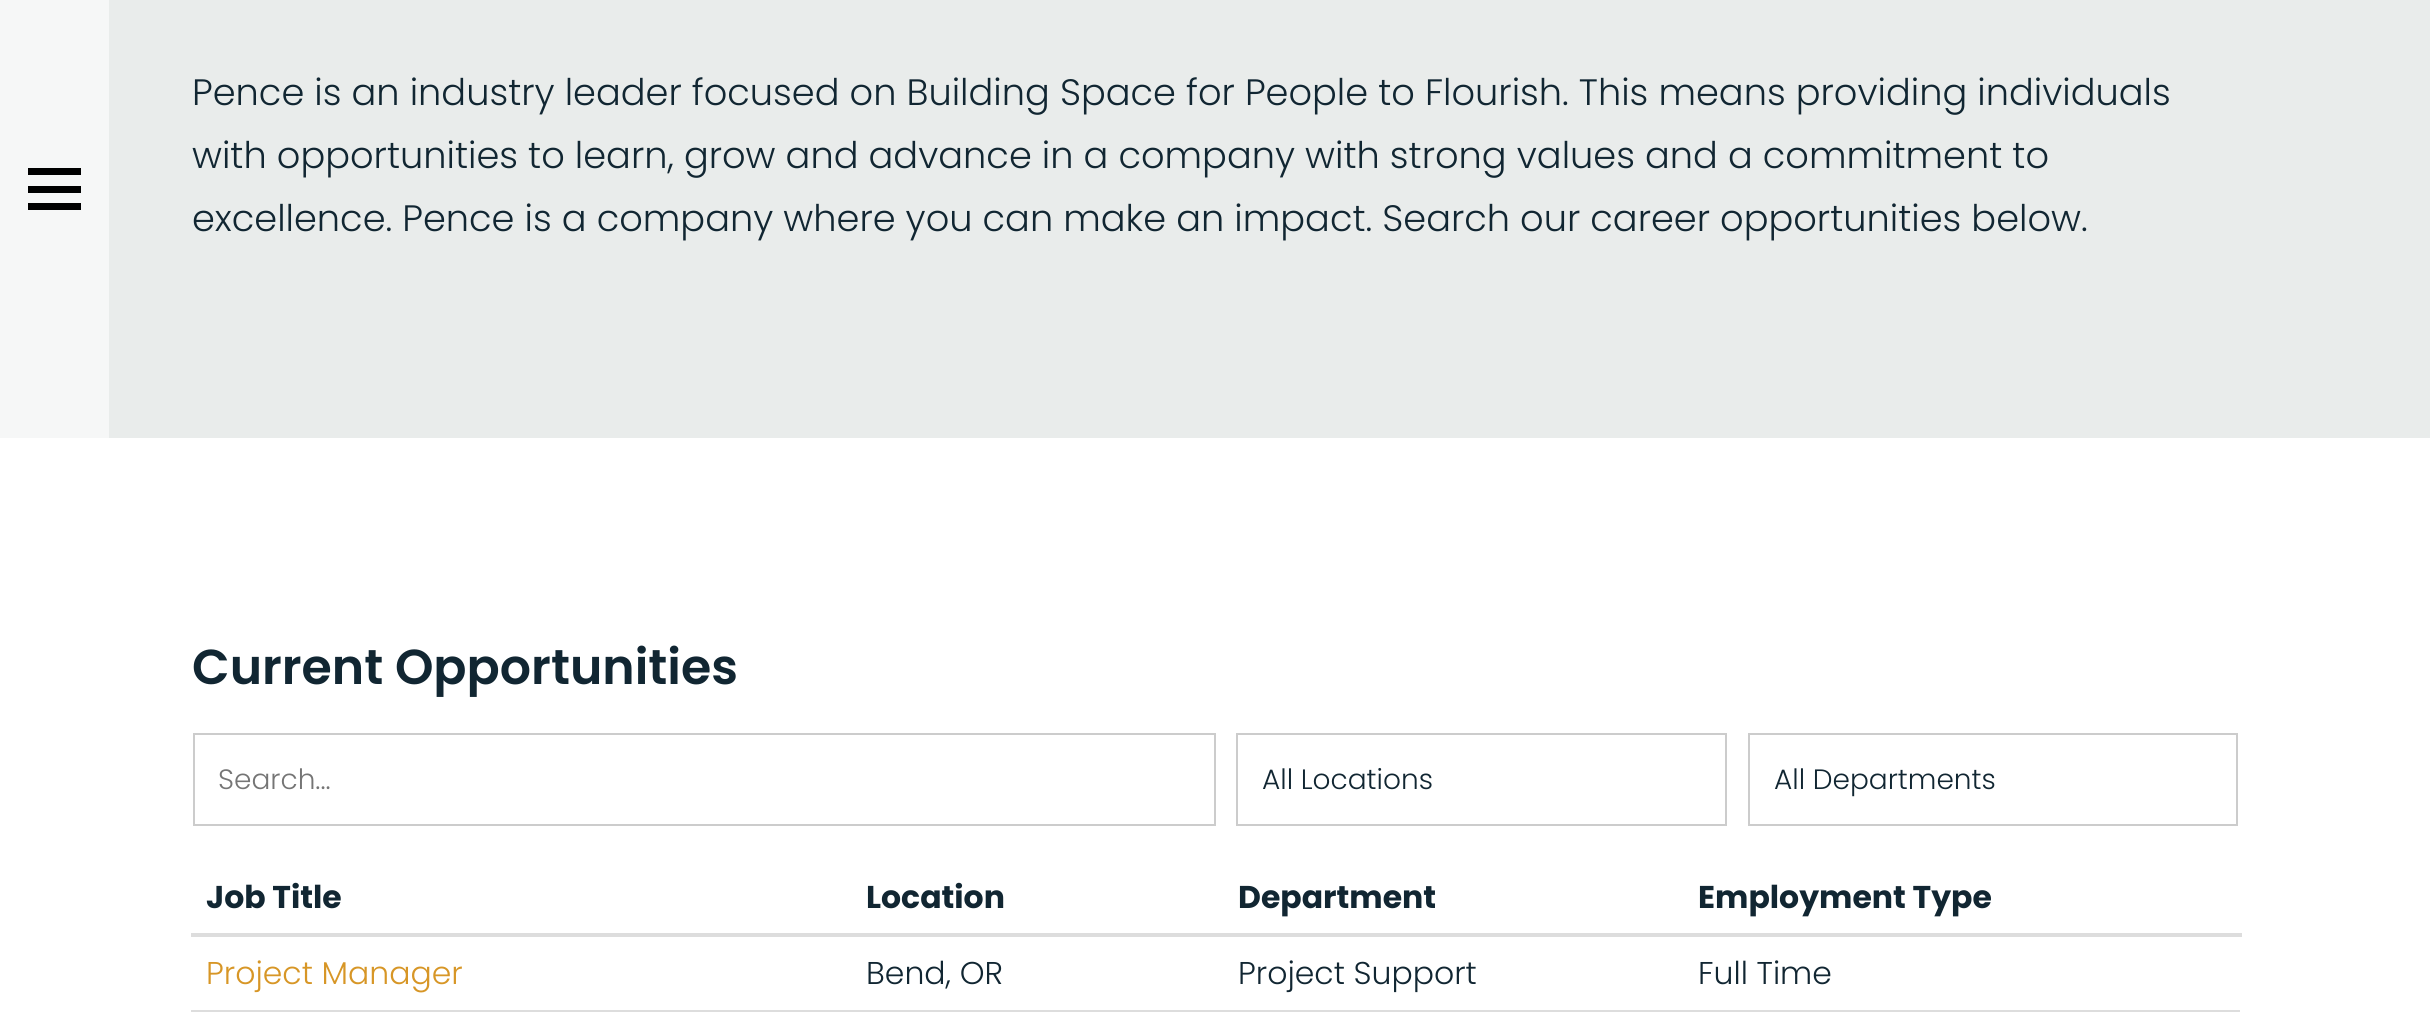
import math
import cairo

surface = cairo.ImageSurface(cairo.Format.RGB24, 2430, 1013)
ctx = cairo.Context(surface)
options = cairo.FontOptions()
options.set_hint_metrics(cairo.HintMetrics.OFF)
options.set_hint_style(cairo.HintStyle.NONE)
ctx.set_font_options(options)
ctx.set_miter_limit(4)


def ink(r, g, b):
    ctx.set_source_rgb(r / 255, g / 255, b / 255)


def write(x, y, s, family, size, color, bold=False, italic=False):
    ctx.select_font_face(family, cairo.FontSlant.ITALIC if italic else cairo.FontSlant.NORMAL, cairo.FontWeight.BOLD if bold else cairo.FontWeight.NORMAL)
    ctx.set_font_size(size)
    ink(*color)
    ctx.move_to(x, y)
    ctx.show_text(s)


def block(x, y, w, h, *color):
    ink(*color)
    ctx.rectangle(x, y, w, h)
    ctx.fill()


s1 = dict(family="Poppins Light", size=36.75, color=(17, 38, 50))
s2 = dict(family="Poppins SemiBold", size=49, color=(17, 38, 50))
s3 = dict(family="Poppins Light", size=28, color=(117, 117, 117))
s4 = dict(family="Poppins Light", size=28, color=(17, 38, 50))
s5 = dict(family="Poppins", size=31.5, color=(17, 38, 50), bold=True)
s6 = dict(family="Poppins Light", size=31.5, color=(215, 150, 38))
s7 = dict(family="Poppins Light", size=31.5, color=(17, 38, 50))

ink(255, 255, 255)
ctx.paint()
block(0, 0, 109, 438, 246, 247, 247)
block(28, 168, 53, 7, 0, 0, 0)
block(28, 186, 53, 7, 0, 0, 0)
block(28, 203, 53, 7, 0, 0, 0)
block(109, 0, 2321, 438, 233, 236, 235)
write(192, 105, "Pence is an industry leader focused on Building Space for People to Flourish. This means providing individuals", **s1)
write(192, 168, "with opportunities to learn, grow and advance in a company with strong values and a commitment to", **s1)
write(192, 231, "excellence. Pence is a company where you can make an impact. Search our career opportunities below.", **s1)
write(192, 684, "Current Opportunities", **s2)
ctx.rectangle(194, 734, 1021, 91)
ink(204, 204, 204)
ctx.stroke()
write(218, 789, "Search...", **s3)
ctx.rectangle(1237, 734, 489, 91)
ink(204, 204, 204)
ctx.stroke()
write(1262, 789, "All Locations", **s4)
ctx.rectangle(1749, 734, 488, 91)
ink(204, 204, 204)
ctx.stroke()
write(1774, 789, "All Departments", **s4)
write(206, 908, "Job Title", **s5)
write(866, 908, "Location", **s5)
write(1238, 908, "Department", **s5)
block(191, 933, 2051, 4, 221, 221, 221)
write(1698, 908, "Employment Type", **s5)
write(206, 984, "Project Manager", **s6)
write(866, 984, "Bend, OR", **s7)
write(1238, 984, "Project Support", **s7)
write(1698, 984, "Full Time", **s7)
block(191, 1010, 2049, 2, 221, 221, 221)
surface.write_to_png("screenshot.png")
